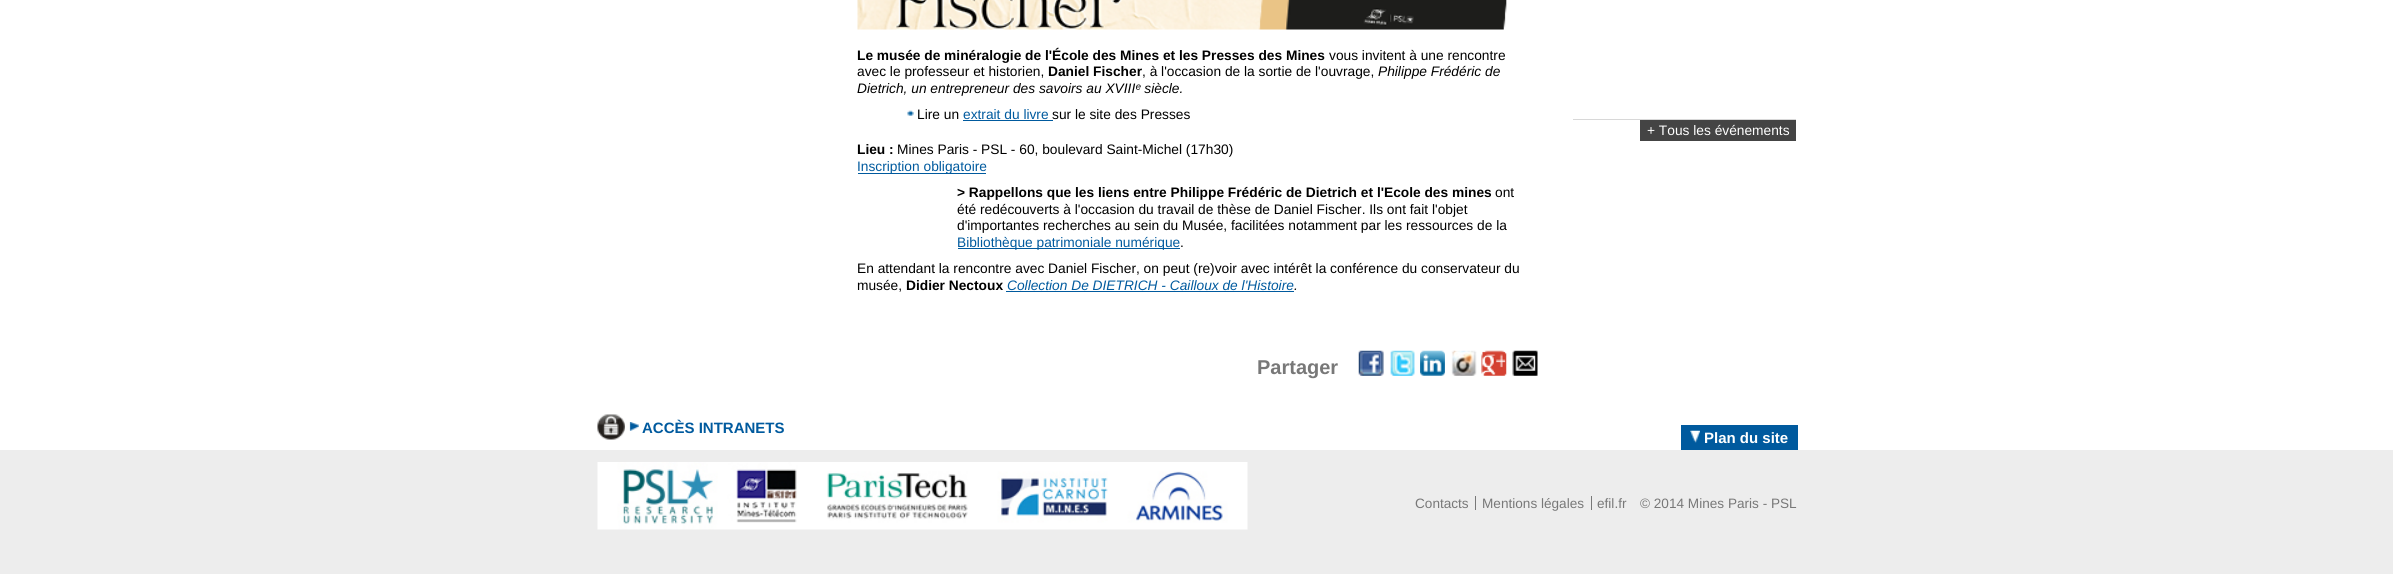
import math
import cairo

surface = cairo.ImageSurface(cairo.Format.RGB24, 2393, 574)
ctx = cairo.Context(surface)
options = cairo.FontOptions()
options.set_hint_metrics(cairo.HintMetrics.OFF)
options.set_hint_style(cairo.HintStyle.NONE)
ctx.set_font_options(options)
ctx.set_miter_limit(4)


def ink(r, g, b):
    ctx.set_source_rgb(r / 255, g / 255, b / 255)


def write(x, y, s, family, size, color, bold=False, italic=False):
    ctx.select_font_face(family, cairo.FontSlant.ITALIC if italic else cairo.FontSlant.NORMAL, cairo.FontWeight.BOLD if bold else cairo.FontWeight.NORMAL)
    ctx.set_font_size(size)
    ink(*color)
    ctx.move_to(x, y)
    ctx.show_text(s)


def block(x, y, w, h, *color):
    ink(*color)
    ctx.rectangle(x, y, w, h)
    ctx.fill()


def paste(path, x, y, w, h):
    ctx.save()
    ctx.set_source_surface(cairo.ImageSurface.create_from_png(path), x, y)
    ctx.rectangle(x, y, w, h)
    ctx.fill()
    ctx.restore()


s1 = dict(family="Liberation Sans", size=13.75, color=(0, 0, 0), bold=True)
s2 = dict(family="Liberation Sans", size=13.75, color=(0, 0, 0))
s3 = dict(family="Liberation Sans", size=13.75, color=(0, 0, 0), italic=True)
s4 = dict(family="Liberation Sans", size=13.75, color=(0, 90, 158))
s5 = dict(family="Liberation Sans", size=13.75, color=(0, 90, 158), italic=True)
s6 = dict(family="Liberation Sans", size=20, color=(120, 120, 120), bold=True)
s7 = dict(family="Liberation Sans", size=13.75, color=(255, 255, 255))
s8 = dict(family="Liberation Sans", size=15, color=(0, 90, 158), bold=True)
s9 = dict(family="Liberation Sans", size=15, color=(255, 255, 255), bold=True)
s10 = dict(family="Liberation Sans", size=13.6, color=(120, 120, 120))

ink(237, 237, 237)
ctx.paint()
block(0, 0, 2393, 450, 255, 255, 255)
paste("pic1.png", 857, 0, 650, 30)
write(857, 60, "Le musée de minéralogie de l'École des Mines et les Presses des Mines", **s1)
write(1329, 60, "vous invitent à une rencontre", **s2)
write(857, 76, "avec le professeur et historien,", **s2)
write(1048, 76, "Daniel Fischer", **s1)
write(1142, 76, ", à l'occasion de la sortie de l'ouvrage,", **s2)
write(1378, 76, "Philippe Frédéric de", **s3)
write(857, 93, "Dietrich, un entrepreneur des savoirs au XVIIIᵉ siècle.", **s3)
paste("pic2.png", 907, 110, 7, 6)
write(917, 119, "Lire un", **s2)
write(963, 119, "extrait du livre", **s4)
block(963, 120, 90, 1, 0, 90, 158)
write(1052, 119, "sur le site des Presses", **s2)
write(857, 154, "Lieu :", **s1)
write(897, 154, "Mines Paris - PSL - 60, boulevard Saint-Michel (17h30)", **s2)
block(858, 173, 128, 1, 0, 90, 158)
write(857, 171, "Inscription obligatoire", **s4)
write(957, 197, "> Rappellons que les liens entre Philippe Frédéric de Dietrich et l'Ecole des mines", **s1)
write(1495, 197, "ont", **s2)
write(957, 214, "été redécouverts à l'occasion du travail de thèse de Daniel Fischer. Ils ont fait l'objet", **s2)
write(957, 230, "d'importantes recherches au sein du Musée, facilitées notamment par les ressources de la", **s2)
block(958, 248, 222, 1, 0, 90, 158)
write(957, 247, "Bibliothèque patrimoniale numérique", **s4)
write(1180, 247, ".", **s2)
write(857, 273, "En attendant la rencontre avec Daniel Fischer, on peut (re)voir avec intérêt la conférence du conservateur du", **s2)
write(857, 290, "musée,", **s2)
write(906, 290, "Didier Nectoux", **s1)
write(1007, 290, "Collection De DIETRICH - Cailloux de l'Histoire", **s5)
write(1294, 290, ".", **s3)
block(1006, 291, 288, 1, 0, 90, 158)
write(1257, 374, "Partager", **s6)
paste("pic3.png", 1358, 350, 26, 26)
paste("pic4.png", 1390, 350, 25, 26)
paste("pic5.png", 1420, 350, 25, 26)
paste("pic6.png", 1451, 350, 26, 26)
paste("pic7.png", 1481, 350, 26, 26)
paste("pic8.png", 1512, 350, 26, 26)
block(1573, 119, 223, 1, 216, 216, 216)
block(1640, 120, 156, 21, 68, 68, 68)
write(1647, 135, "+ Tous les événements", **s7)
paste("pic9.png", 597, 414, 28, 26)
paste("pic10.png", 629, 422, 10, 9)
write(642, 433, "ACCÈS INTRANETS", **s8)
block(1681, 425, 117, 25, 0, 90, 158)
paste("pic11.png", 1690, 430, 10, 13)
write(1704, 443, "Plan du site", **s9)
paste("pic12.png", 597, 462, 651, 68)
write(1415, 508, "Contacts", **s10)
block(1475, 496, 1, 14, 120, 120, 120)
write(1482, 508, "Mentions légales", **s10)
block(1591, 496, 1, 14, 120, 120, 120)
write(1597, 508, "efil.fr", **s10)
write(1640, 508, "© 2014 Mines Paris - PSL", **s10)
surface.write_to_png("screenshot.png")
